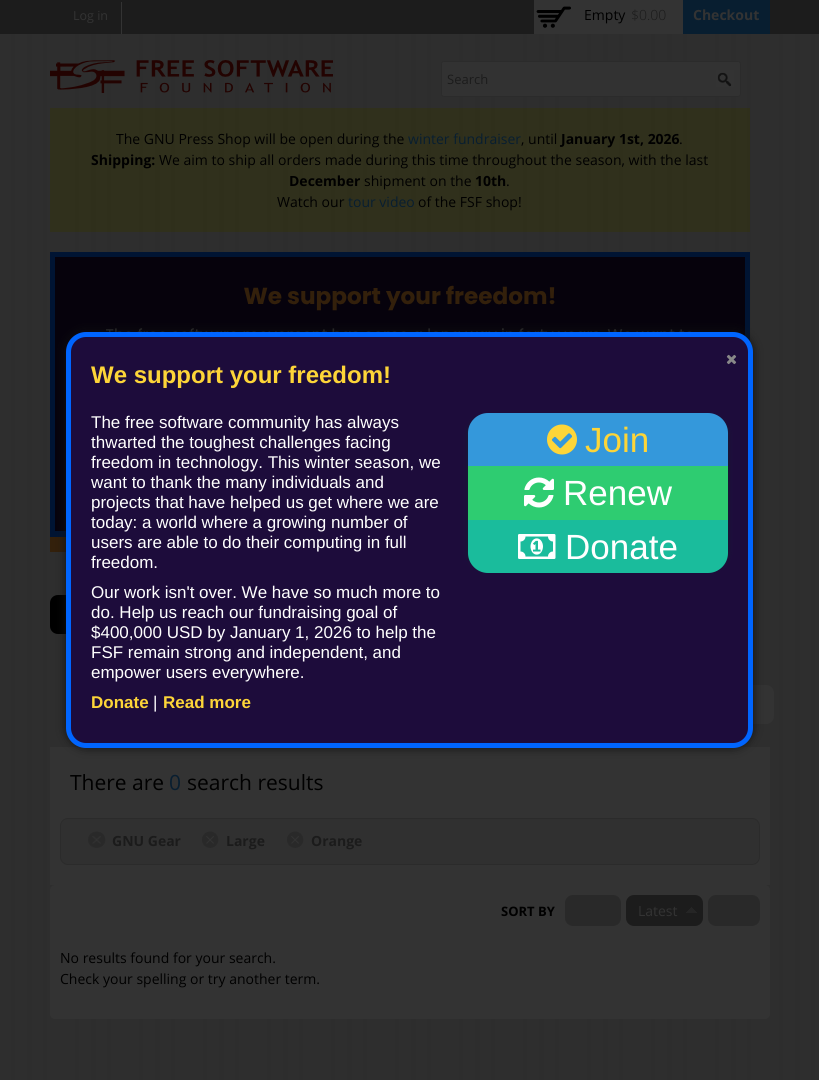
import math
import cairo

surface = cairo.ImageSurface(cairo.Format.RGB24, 819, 1080)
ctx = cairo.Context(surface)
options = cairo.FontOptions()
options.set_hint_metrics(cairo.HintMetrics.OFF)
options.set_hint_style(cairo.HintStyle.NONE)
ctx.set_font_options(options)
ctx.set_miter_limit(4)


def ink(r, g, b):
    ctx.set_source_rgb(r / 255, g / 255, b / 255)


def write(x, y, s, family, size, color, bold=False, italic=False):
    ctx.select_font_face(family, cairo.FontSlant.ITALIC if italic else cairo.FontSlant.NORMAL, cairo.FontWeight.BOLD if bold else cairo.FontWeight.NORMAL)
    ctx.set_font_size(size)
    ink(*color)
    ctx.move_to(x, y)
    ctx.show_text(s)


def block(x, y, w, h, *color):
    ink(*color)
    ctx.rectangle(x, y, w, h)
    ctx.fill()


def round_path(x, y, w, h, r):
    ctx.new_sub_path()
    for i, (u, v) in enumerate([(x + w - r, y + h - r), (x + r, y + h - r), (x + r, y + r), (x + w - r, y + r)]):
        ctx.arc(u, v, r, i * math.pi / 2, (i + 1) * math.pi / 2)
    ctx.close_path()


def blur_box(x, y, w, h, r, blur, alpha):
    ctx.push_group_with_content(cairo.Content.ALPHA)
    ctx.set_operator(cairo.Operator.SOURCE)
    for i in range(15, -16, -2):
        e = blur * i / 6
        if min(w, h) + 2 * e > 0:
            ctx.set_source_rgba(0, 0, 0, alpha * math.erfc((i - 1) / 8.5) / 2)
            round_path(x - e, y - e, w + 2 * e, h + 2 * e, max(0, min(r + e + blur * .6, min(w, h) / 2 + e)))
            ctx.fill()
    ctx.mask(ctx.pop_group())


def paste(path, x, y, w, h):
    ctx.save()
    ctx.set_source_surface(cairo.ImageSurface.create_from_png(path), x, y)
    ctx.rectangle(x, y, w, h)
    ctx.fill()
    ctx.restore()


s1 = dict(family="Open Sans", size=12.5, color=(51, 51, 51))
s2 = dict(family="Open Sans", size=14, color=(0, 0, 0))
s3 = dict(family="Open Sans Light", size=14, color=(27, 27, 27))
s4 = dict(family="Open Sans", size=14, color=(51, 51, 51), bold=True)
s5 = dict(family="Open Sans", size=13, color=(27, 27, 27))
s6 = dict(family="Open Sans", size=14, color=(8, 30, 48))
s7 = dict(family="Open Sans", size=14, color=(0, 0, 0), bold=True)
s8 = dict(family="Liberation Sans", size=24, color=(253, 213, 56), bold=True)
s9 = dict(family="Liberation Sans", size=17, color=(255, 255, 255))
s10 = dict(family="Liberation Sans", size=17, color=(253, 213, 56), bold=True)
s11 = dict(family="Liberation Sans", size=35, color=(253, 213, 56))
s12 = dict(family="Liberation Sans", size=35, color=(255, 255, 255))
s13 = dict(family="Open Sans", size=21, color=(0, 0, 0))
s14 = dict(family="Open Sans", size=21, color=(8, 30, 48))
s15 = dict(family="Open Sans", size=14, color=(27, 27, 27), bold=True)
s16 = dict(family="Open Sans", size=13, color=(0, 0, 0), bold=True)
s17 = dict(family="Open Sans", size=14, color=(51, 51, 51))

ink(47, 47, 47)
ctx.paint()
paste("pic1.png", 0, 34, 819, 1046)
block(0, 0, 819, 34, 28, 28, 28)
block(121, 2, 1, 32, 51, 51, 51)
write(73, 20, "Log in", **s1)
block(534, 0, 149, 34, 51, 51, 51)
paste("pic2.png", 536, 6, 35, 22)
write(584, 20, "Empty", **s2)
write(631, 20, "$0.00", **s3)
block(683, 0, 87, 34, 8, 30, 48)
write(693, 20, "Checkout", **s4)
paste("pic3.png", 50, 60, 283, 33)
ink(50, 50, 50)
round_path(441.5, 61.5, 299, 35, 2.5)
ctx.fill_preserve()
ink(43, 43, 43)
ctx.set_line_width(1)
ctx.stroke()
write(447, 84, "Search", **s5)
paste("pic4.png", 716, 70, 18, 17)
ctx.set_source_rgba(0.2, 0.2, 0, 0.4)
ctx.rectangle(50, 108, 700, 124)
ctx.fill()
write(116, 144, "The GNU Press Shop will be open during the", **s2)
write(408, 144, "winter fundraiser", **s6)
write(521, 144, ", until", **s2)
write(561, 144, "January 1st, 2026", **s7)
write(679, 144, ".", **s2)
write(91, 165, "Shipping:", **s7)
write(159, 165, "We aim to ship all orders made during this time throughout the season, with the last", **s2)
write(289, 186, "December", **s7)
write(364, 186, "shipment on the", **s2)
write(475, 186, "10th", **s7)
write(506, 186, ".", **s2)
write(277, 207, "Watch our", **s2)
write(348, 207, "tour video", **s6)
write(418, 207, "of the FSF shop!", **s2)
paste("pic5.png", 50, 252, 700, 300)
ctx.new_path()
ctx.move_to(58, 595)
ctx.line_to(155, 595)
ctx.line_to(155, 634)
ctx.line_to(58, 634)
ctx.curve_to(53.5, 634, 50, 630.5, 50, 626)
ctx.line_to(50, 603)
ctx.curve_to(50, 598.5, 53.5, 595, 58, 595)
ctx.close_path()
ctx.fill()
ink(51, 51, 51)
ctx.new_path()
ctx.move_to(705, 685)
ctx.line_to(766, 685)
ctx.curve_to(770.5, 685, 774, 688.5, 774, 693)
ctx.line_to(774, 716)
ctx.curve_to(774, 720.5, 770.5, 724, 766, 724)
ctx.line_to(705, 724)
ctx.close_path()
ctx.fill()
block(50, 747, 720, 138, 51, 51, 51)
ink(17, 17, 17)
blur_box(66, 332, 687, 416, 20, 5, 1)
ink(29, 12, 59)
round_path(68.5, 334.5, 682, 411, 17.5)
ctx.fill_preserve()
ink(0, 101, 255)
ctx.set_line_width(5)
ctx.stroke()
paste("pic6.png", 726, 354, 11, 11)
write(91, 383, "We support your freedom!", **s8)
write(91, 428, "The free software community has always", **s9)
write(91, 448, "thwarted the toughest challenges facing", **s9)
write(91, 468, "freedom in technology. This winter season, we", **s9)
write(91, 488, "want to thank the many individuals and", **s9)
write(91, 508, "projects that have helped us get where we are", **s9)
write(91, 528, "today: a world where a growing number of", **s9)
write(91, 548, "users are able to do their computing in full", **s9)
write(91, 568, "freedom.", **s9)
write(91, 598, "Our work isn't over. We have so much more to", **s9)
write(91, 618, "do. Help us reach our fundraising goal of", **s9)
write(91, 638, "$400,000 USD by January 1, 2026 to help the", **s9)
write(91, 658, "FSF remain strong and independent, and", **s9)
write(91, 678, "empower users everywhere.", **s9)
write(91, 708, "Donate", **s10)
write(153, 708, "|", **s9)
write(163, 708, "Read more", **s10)
ink(12, 43, 43)
blur_box(469, 419, 248, 148, 14, 2.5, 1)
blur_box(479, 419, 248, 148, 14, 2.5, 1)
ink(52, 152, 219)
ctx.new_path()
ctx.move_to(488, 413)
ctx.line_to(708, 413)
ctx.curve_to(719, 413, 728, 422, 728, 433)
ctx.line_to(728, 466)
ctx.line_to(468, 466)
ctx.line_to(468, 433)
ctx.curve_to(468, 422, 477, 413, 488, 413)
ctx.close_path()
ctx.fill()
paste("pic7.png", 547, 424, 30, 31)
write(585, 452, "Join", **s11)
block(468, 466, 260, 54, 46, 204, 113)
paste("pic8.png", 524, 477, 30, 31)
write(563, 505, "Renew", **s12)
ink(26, 188, 156)
ctx.new_path()
ctx.move_to(468, 520)
ctx.line_to(728, 520)
ctx.line_to(728, 553)
ctx.curve_to(728, 564, 719, 573, 708, 573)
ctx.line_to(488, 573)
ctx.curve_to(477, 573, 468, 564, 468, 553)
ctx.close_path()
ctx.fill()
paste("pic9.png", 518, 534, 38, 25)
write(565, 559, "Donate", **s12)
write(70, 790, "There are", **s13)
write(169, 790, "0", **s14)
write(187, 790, "search results", **s13)
ink(48, 48, 48)
round_path(60.5, 818.5, 699, 46, 7.5)
ctx.fill_preserve()
ink(43, 43, 43)
ctx.set_line_width(1)
ctx.stroke()
paste("pic10.png", 88, 831, 18, 17)
write(112, 846, "GNU Gear", **s15)
paste("pic11.png", 202, 831, 17, 17)
write(226, 846, "Large", **s15)
paste("pic11.png", 287, 831, 17, 17)
write(311, 846, "Orange", **s15)
ink(51, 51, 51)
round_path(50, 885, 720, 134, 5)
ctx.fill()
write(501, 916, "SORT BY", **s16)
ink(41, 41, 41)
round_path(565, 895, 56, 31, 8)
ctx.fill()
ink(28, 28, 28)
round_path(626, 895, 77, 31, 8)
ctx.fill()
write(638, 916, "Latest", **s17)
paste("pic12.png", 686, 907, 11, 6)
ink(41, 41, 41)
round_path(708, 895, 52, 31, 8)
ctx.fill()
write(60, 963, "No results found for your search.", **s2)
write(60, 984, "Check your spelling or try another term.", **s2)
surface.write_to_png("screenshot.png")
